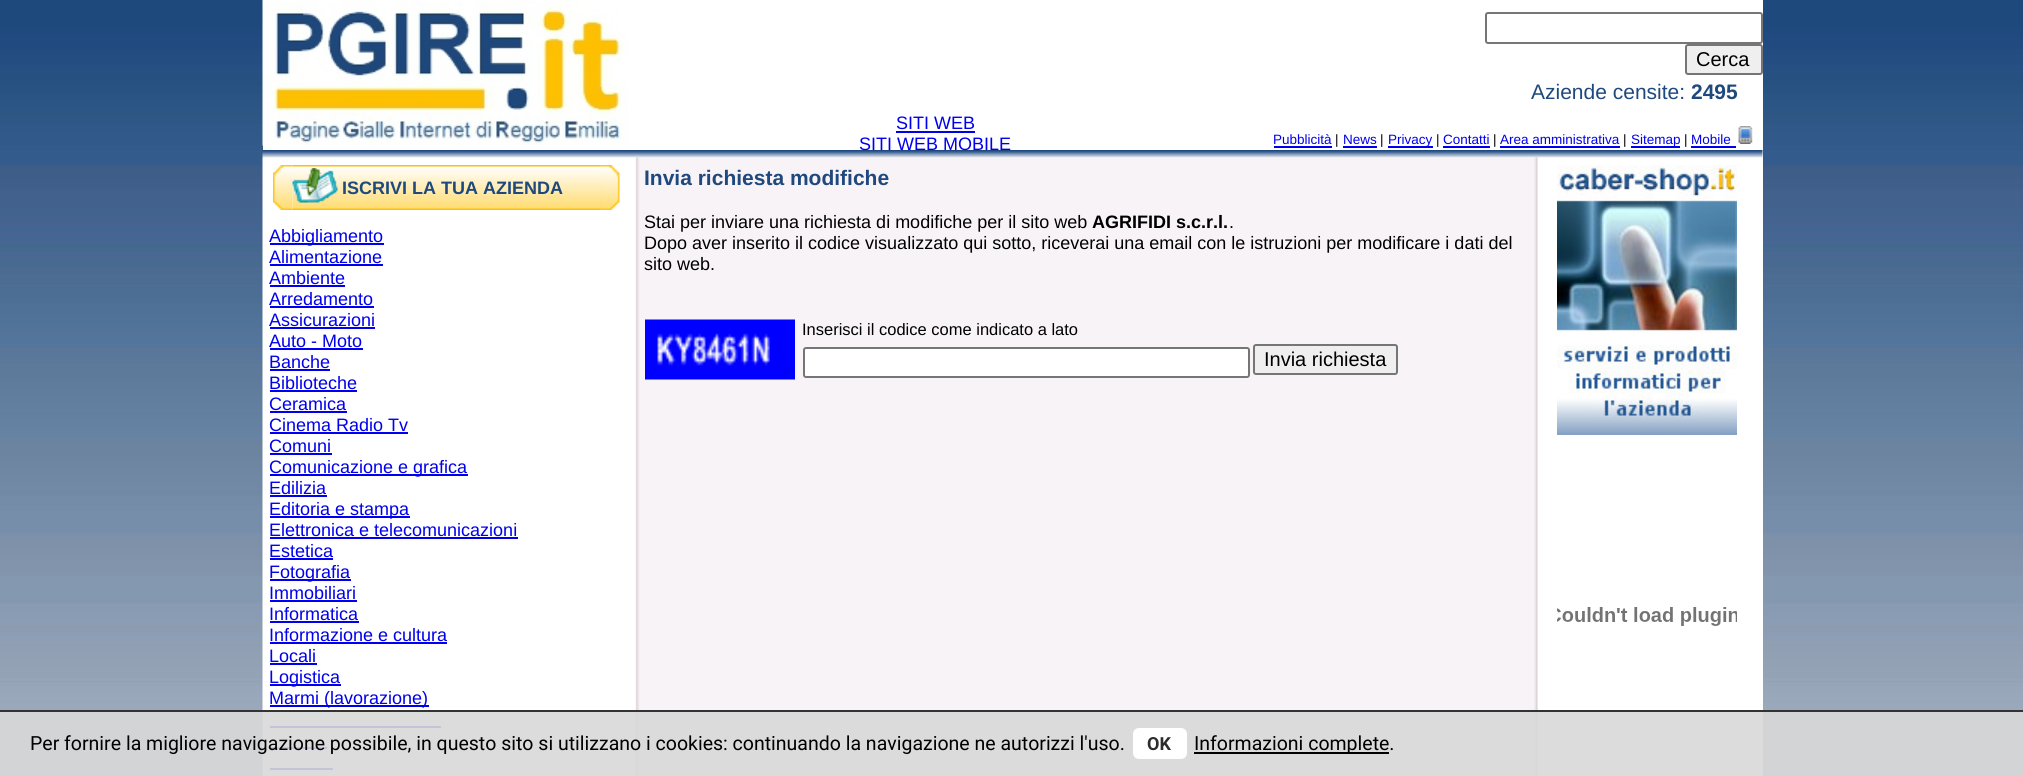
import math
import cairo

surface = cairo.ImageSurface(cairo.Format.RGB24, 2023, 776)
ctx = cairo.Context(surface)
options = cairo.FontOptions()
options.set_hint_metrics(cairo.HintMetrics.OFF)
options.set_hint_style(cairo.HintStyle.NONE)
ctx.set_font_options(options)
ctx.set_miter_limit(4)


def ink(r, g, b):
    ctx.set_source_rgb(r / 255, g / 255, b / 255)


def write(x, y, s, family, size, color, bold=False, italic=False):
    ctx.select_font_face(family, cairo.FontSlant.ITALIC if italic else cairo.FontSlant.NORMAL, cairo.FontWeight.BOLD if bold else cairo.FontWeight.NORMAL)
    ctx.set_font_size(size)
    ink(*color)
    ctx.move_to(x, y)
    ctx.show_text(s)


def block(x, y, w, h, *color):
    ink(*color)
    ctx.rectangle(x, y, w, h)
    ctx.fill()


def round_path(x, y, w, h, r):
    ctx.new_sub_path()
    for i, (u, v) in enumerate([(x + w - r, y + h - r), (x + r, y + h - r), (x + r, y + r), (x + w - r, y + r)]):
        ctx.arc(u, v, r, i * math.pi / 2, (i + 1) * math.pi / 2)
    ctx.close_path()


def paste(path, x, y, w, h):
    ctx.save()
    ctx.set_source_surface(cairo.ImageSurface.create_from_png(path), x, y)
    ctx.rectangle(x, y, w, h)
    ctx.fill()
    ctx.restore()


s1 = dict(family="Liberation Sans", size=20, color=(0, 0, 0))
s2 = dict(family="Liberation Sans", size=21, color=(31, 73, 125))
s3 = dict(family="Liberation Sans", size=21, color=(31, 73, 125), bold=True)
s4 = dict(family="Liberation Sans", size=18, color=(0, 0, 238))
s5 = dict(family="Liberation Sans", size=13.5, color=(0, 0, 238))
s6 = dict(family="Liberation Sans", size=13.5, color=(0, 0, 0))
s7 = dict(family="Liberation Sans", size=18, color=(31, 73, 125), bold=True)
s8 = dict(family="Liberation Sans", size=18, color=(0, 0, 0))
s9 = dict(family="Liberation Sans", size=18, color=(0, 0, 0), bold=True)
s10 = dict(family="Liberation Sans", size=16.5, color=(0, 0, 0))
s11 = dict(family="Roboto", size=19.5, color=(0, 0, 0))
s12 = dict(family="Roboto", size=18, color=(45, 45, 45), bold=True)

ink(255, 255, 255)
ctx.paint()
paste("pic1.png", 0, 0, 2023, 776)
block(263, 0, 1500, 776, 255, 255, 255)
paste("pic2.png", 262, 0, 366, 146)
round_path(1486, 13, 276, 30, 2)
ink(118, 118, 118)
ctx.stroke()
ink(239, 239, 239)
round_path(1686, 45, 76, 29, 2)
ctx.fill_preserve()
ink(118, 118, 118)
ctx.stroke()
write(1696, 66, "Cerca", **s1)
write(1531, 99, "Aziende censite:", **s2)
write(1691, 99, "2495", **s3)
write(896, 129, "SITI WEB", **s4)
block(896, 131, 79, 2, 0, 0, 238)
write(859, 150, "SITI WEB MOBILE", **s4)
write(1273, 144, "Pubblicità", **s5)
block(1274, 146, 58, 2, 0, 0, 238)
write(1335, 144, "|", **s6)
write(1343, 144, "News", **s5)
block(1343, 146, 34, 2, 0, 0, 238)
write(1380, 144, "|", **s6)
block(1388, 146, 45, 2, 0, 0, 238)
write(1388, 144, "Privacy", **s5)
write(1436, 144, "|", **s6)
write(1443, 144, "Contatti", **s5)
block(1443, 146, 47, 2, 0, 0, 238)
write(1493, 144, "|", **s6)
write(1500, 144, "Area amministrativa", **s5)
block(1500, 146, 120, 2, 0, 0, 238)
write(1623, 144, "|", **s6)
block(1631, 146, 49, 2, 0, 0, 238)
write(1631, 144, "Sitemap", **s5)
write(1684, 144, "|", **s6)
write(1691, 144, "Mobile", **s5)
block(1691, 146, 45, 2, 0, 0, 238)
paste("pic3.png", 1738, 126, 15, 18)
paste("pic4.png", 262, 150, 1501, 8)
paste("pic5.png", 262, 157, 1500, 619)
paste("pic6.png", 273, 165, 20, 45)
paste("pic7.png", 292, 165, 308, 45)
paste("pic8.png", 292, 168, 46, 35)
write(342, 194, "ISCRIVI LA TUA AZIENDA", **s7)
paste("pic9.png", 600, 165, 20, 45)
block(270, 243, 114, 2, 0, 0, 238)
write(269, 242, "Abbigliamento", **s4)
write(269, 263, "Alimentazione", **s4)
block(270, 264, 113, 2, 0, 0, 238)
write(269, 284, "Ambiente", **s4)
block(270, 285, 75, 2, 0, 0, 238)
write(269, 305, "Arredamento", **s4)
block(270, 306, 104, 2, 0, 0, 238)
write(269, 326, "Assicurazioni", **s4)
block(270, 327, 105, 2, 0, 0, 238)
write(269, 347, "Auto - Moto", **s4)
block(270, 348, 93, 2, 0, 0, 238)
write(269, 368, "Banche", **s4)
block(270, 369, 60, 2, 0, 0, 238)
write(269, 389, "Biblioteche", **s4)
block(270, 390, 87, 2, 0, 0, 238)
write(269, 410, "Ceramica", **s4)
block(270, 411, 77, 2, 0, 0, 238)
write(269, 431, "Cinema Radio Tv", **s4)
block(270, 432, 138, 2, 0, 0, 238)
write(269, 452, "Comuni", **s4)
block(270, 453, 62, 2, 0, 0, 238)
block(270, 474, 198, 2, 0, 0, 238)
write(269, 473, "Comunicazione e grafica", **s4)
write(269, 494, "Edilizia", **s4)
block(270, 495, 57, 2, 0, 0, 238)
block(270, 516, 140, 2, 0, 0, 238)
write(269, 515, "Editoria e stampa", **s4)
write(269, 536, "Elettronica e telecomunicazioni", **s4)
block(270, 537, 248, 2, 0, 0, 238)
write(269, 557, "Estetica", **s4)
block(270, 558, 63, 2, 0, 0, 238)
block(270, 579, 81, 2, 0, 0, 238)
write(269, 578, "Fotografia", **s4)
write(269, 599, "Immobiliari", **s4)
block(270, 600, 87, 2, 0, 0, 238)
write(269, 620, "Informatica", **s4)
block(270, 621, 89, 2, 0, 0, 238)
write(269, 641, "Informazione e cultura", **s4)
block(270, 642, 177, 2, 0, 0, 238)
write(269, 662, "Locali", **s4)
block(270, 663, 47, 2, 0, 0, 238)
block(270, 684, 71, 2, 0, 0, 238)
write(269, 683, "Logistica", **s4)
block(270, 705, 159, 2, 0, 0, 238)
write(269, 704, "Marmi (lavorazione)", **s4)
block(270, 726, 171, 2, 0, 0, 238)
block(270, 747, 57, 2, 0, 0, 238)
block(270, 768, 63, 2, 0, 0, 238)
write(644, 185, "Invia richiesta modifiche", **s3)
write(644, 228, "Stai per inviare una richiesta di modifiche per il sito web", **s8)
write(1092, 228, "AGRIFIDI s.c.r.l.", **s9)
write(1229, 228, ".", **s8)
write(644, 249, "Dopo aver inserito il codice visualizzato qui sotto, riceverai una email con le istruzioni per modificare i dati del", **s8)
write(644, 270, "sito web.", **s8)
paste("pic10.png", 645, 319, 150, 61)
write(802, 335, "Inserisci il codice come indicato a lato", **s10)
ink(255, 255, 255)
round_path(804, 348, 445, 29, 2)
ctx.fill_preserve()
ink(118, 118, 118)
ctx.stroke()
ink(239, 239, 239)
round_path(1254, 345, 143, 29, 2)
ctx.fill_preserve()
ink(118, 118, 118)
ctx.stroke()
write(1264, 366, "Invia richiesta", **s1)
paste("pic11.png", 1557, 165, 180, 270)
paste("pic12.png", 1557, 607, 180, 19)
ctx.set_source_rgba(0.847, 0.847, 0.847, 0.9)
ctx.rectangle(0, 712, 2023, 64)
ctx.fill()
block(0, 710, 2023, 2, 51, 51, 51)
write(30, 750, "Per fornire la migliore navigazione possibile, in questo sito si utilizzano i cookies: continuando la navigazione ne autorizzi l'uso.", **s11)
ink(255, 255, 255)
round_path(1133, 728, 54, 31, 6)
ctx.fill()
write(1147, 750, "OK", **s12)
block(1194, 752, 195, 2, 0, 0, 0)
write(1194, 750, "Informazioni complete.", **s11)
surface.write_to_png("screenshot.png")
